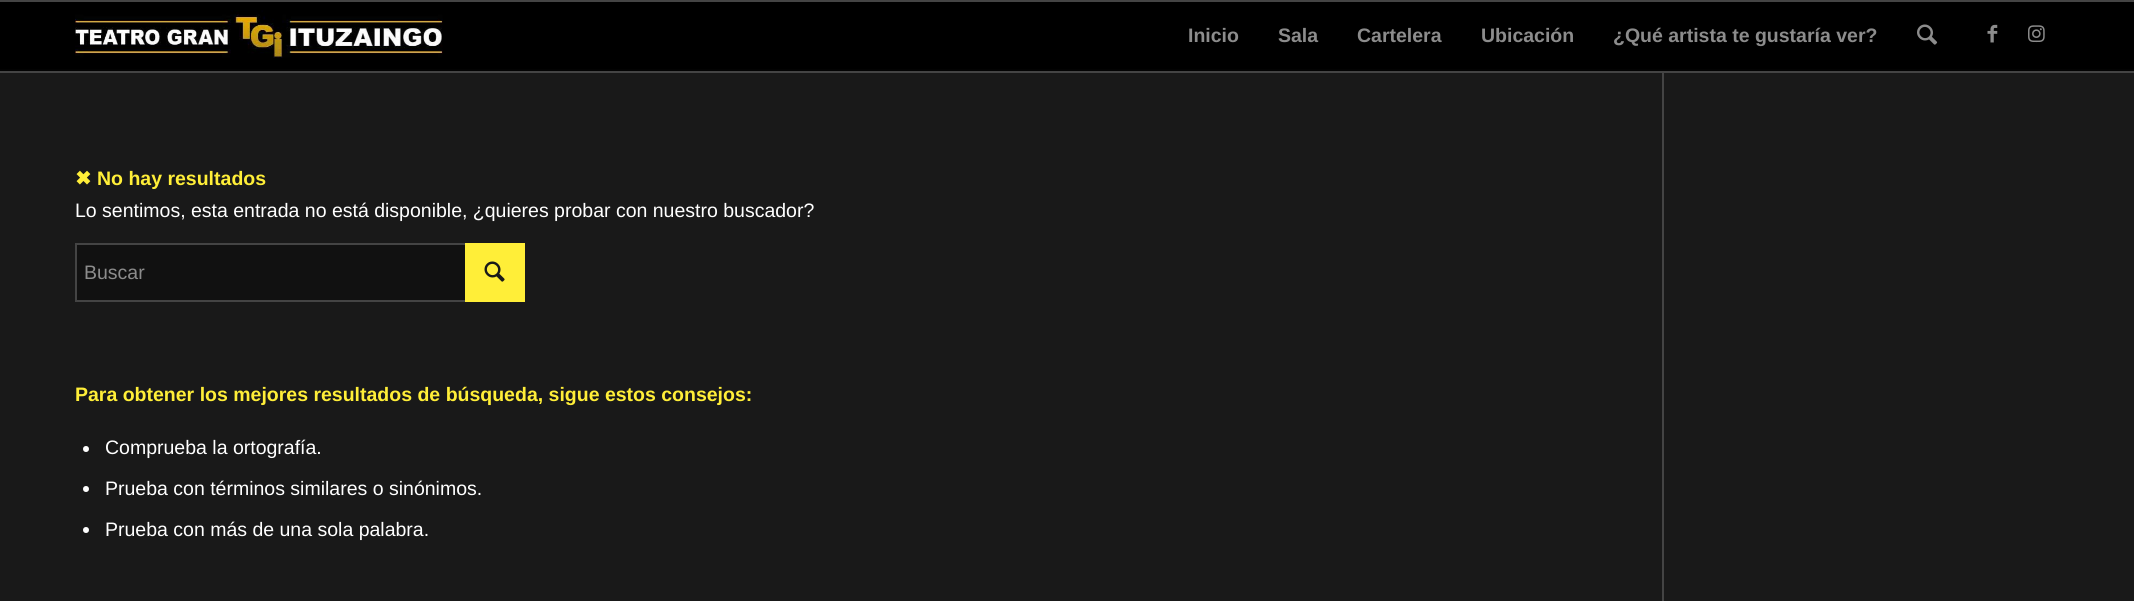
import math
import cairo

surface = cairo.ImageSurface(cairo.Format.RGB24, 2134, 601)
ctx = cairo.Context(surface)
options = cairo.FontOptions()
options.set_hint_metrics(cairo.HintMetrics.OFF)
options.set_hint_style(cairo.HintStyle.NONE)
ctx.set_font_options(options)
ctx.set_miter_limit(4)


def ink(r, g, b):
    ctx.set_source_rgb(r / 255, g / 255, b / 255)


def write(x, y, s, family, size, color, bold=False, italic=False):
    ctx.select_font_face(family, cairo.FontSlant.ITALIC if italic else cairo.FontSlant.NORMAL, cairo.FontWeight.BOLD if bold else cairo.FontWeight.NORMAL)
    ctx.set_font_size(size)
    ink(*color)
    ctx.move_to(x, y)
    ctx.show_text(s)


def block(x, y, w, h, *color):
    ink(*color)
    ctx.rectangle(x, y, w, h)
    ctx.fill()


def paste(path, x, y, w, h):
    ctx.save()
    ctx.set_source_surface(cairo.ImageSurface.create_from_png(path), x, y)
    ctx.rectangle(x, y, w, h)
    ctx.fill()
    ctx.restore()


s1 = dict(family="Liberation Sans", size=19.5, color=(140, 140, 140), bold=True)
s2 = dict(family="DejaVu Sans", size=19.5, color=(255, 238, 56), bold=True)
s3 = dict(family="Liberation Sans", size=19.5, color=(255, 238, 56), bold=True)
s4 = dict(family="Liberation Sans", size=19.5, color=(255, 255, 255))
s5 = dict(family="Liberation Sans", size=19.5, color=(140, 140, 140))

ink(0, 0, 0)
ctx.paint()
block(0, 0, 2134, 2, 68, 68, 68)
block(0, 73, 2134, 528, 25, 25, 25)
block(1662, 71, 2, 530, 68, 68, 68)
block(0, 71, 2134, 2, 68, 68, 68)
paste("pic1.png", 75, 10, 368, 48)
write(1188, 42, "Inicio", **s1)
write(1278, 42, "Sala", **s1)
write(1357, 42, "Cartelera", **s1)
write(1481, 42, "Ubicación", **s1)
write(1613, 42, "¿Qué artista te gustaría ver?", **s1)
paste("pic2.png", 1917, 24, 21, 21)
paste("pic3.png", 1987, 24, 11, 19)
paste("pic4.png", 2028, 25, 17, 18)
block(0, 69, 2134, 2, 3, 3, 3)
write(75, 185, "✖", **s2)
write(97, 185, "No hay resultados", **s3)
write(75, 217, "Lo sentimos, esta entrada no está disponible, ¿quieres probar con nuestro buscador?", **s4)
block(77, 245, 388, 55, 17, 17, 17)
ctx.rectangle(76, 244, 448, 57)
ink(68, 68, 68)
ctx.stroke()
write(84, 279, "Buscar", **s5)
block(465, 243, 60, 59, 255, 238, 56)
paste("pic5.png", 484, 261, 21, 21)
write(75, 401, "Para obtener los mejores resultados de búsqueda, sigue estos consejos:", **s3)
ink(255, 255, 255)
ctx.new_path()
ctx.arc(86, 449, 3, 0, 2 * math.pi)
ctx.fill()
write(105, 454, "Comprueba la ortografía.", **s4)
ctx.new_path()
ctx.arc(86, 489, 3, 0, 2 * math.pi)
ctx.fill()
write(105, 495, "Prueba con términos similares o sinónimos.", **s4)
ctx.new_path()
ctx.arc(86, 530, 3, 0, 2 * math.pi)
ctx.fill()
write(105, 536, "Prueba con más de una sola palabra.", **s4)
surface.write_to_png("screenshot.png")
